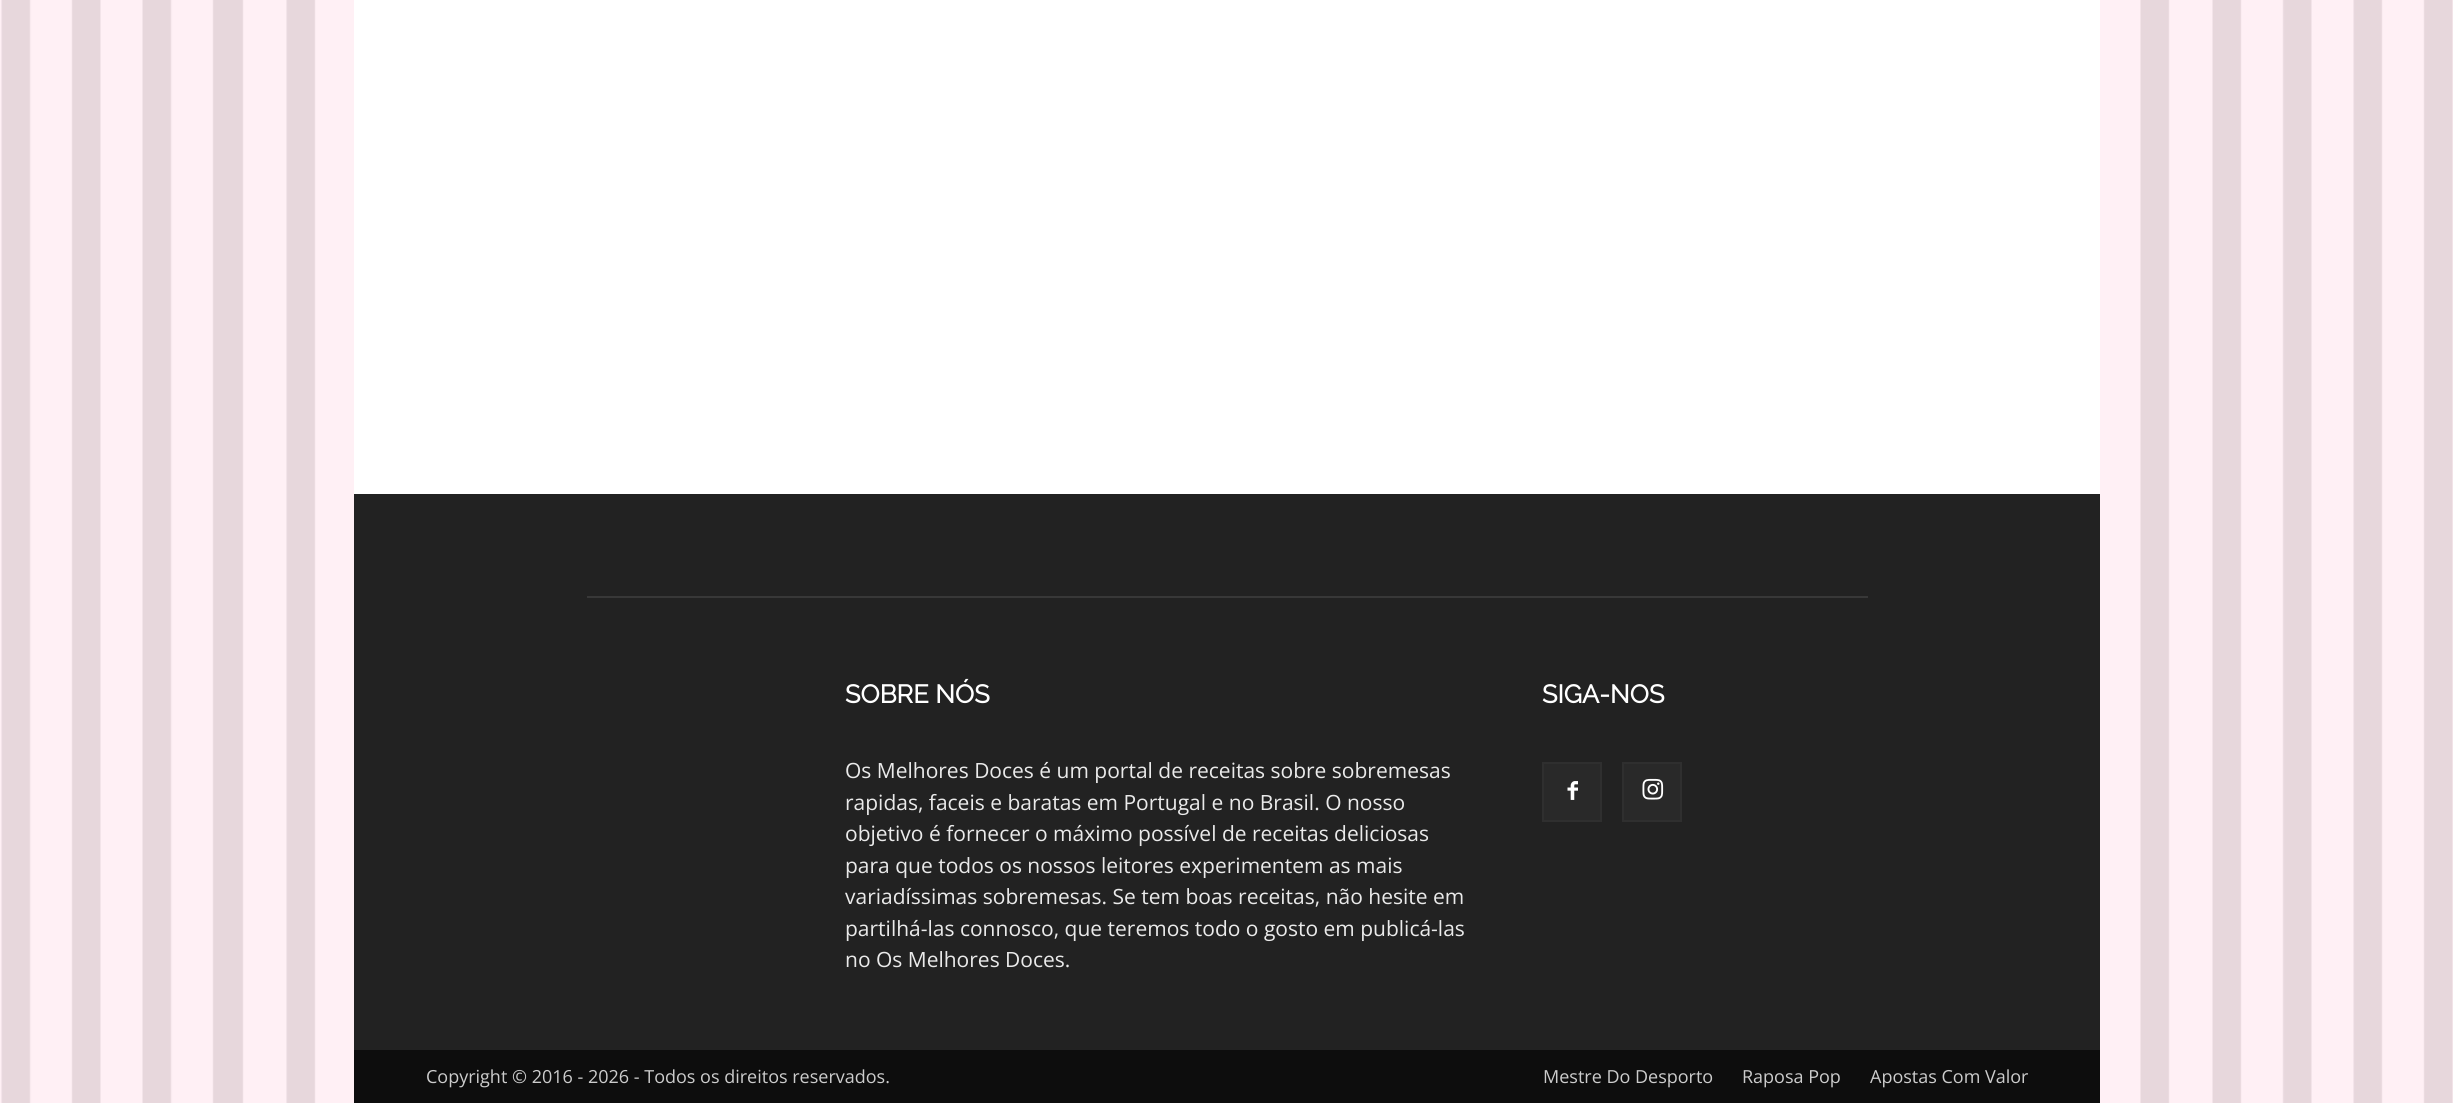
import math
import cairo

surface = cairo.ImageSurface(cairo.Format.RGB24, 2453, 1103)
ctx = cairo.Context(surface)
options = cairo.FontOptions()
options.set_hint_metrics(cairo.HintMetrics.OFF)
options.set_hint_style(cairo.HintStyle.NONE)
ctx.set_font_options(options)
ctx.set_miter_limit(4)


def ink(r, g, b):
    ctx.set_source_rgb(r / 255, g / 255, b / 255)


def write(x, y, s, family, size, color, bold=False, italic=False):
    ctx.select_font_face(family, cairo.FontSlant.ITALIC if italic else cairo.FontSlant.NORMAL, cairo.FontWeight.BOLD if bold else cairo.FontWeight.NORMAL)
    ctx.set_font_size(size)
    ink(*color)
    ctx.move_to(x, y)
    ctx.show_text(s)


def block(x, y, w, h, *color):
    ink(*color)
    ctx.rectangle(x, y, w, h)
    ctx.fill()


def paste(path, x, y, w, h):
    ctx.save()
    ctx.set_source_surface(cairo.ImageSurface.create_from_png(path), x, y)
    ctx.rectangle(x, y, w, h)
    ctx.fill()
    ctx.restore()


s1 = dict(family="Raleway", size=25.5, color=(255, 255, 255), bold=True)
s2 = dict(family="Open Sans", size=21, color=(234, 234, 234))
s3 = dict(family="Open Sans", size=18, color=(204, 204, 204))

ink(255, 255, 255)
ctx.paint()
paste("pic1.png", 0, 0, 2453, 1103)
block(354, 0, 1746, 494, 255, 255, 255)
block(354, 494, 1746, 556, 34, 34, 34)
block(587, 596, 1281, 2, 56, 56, 56)
write(845, 703, "SOBRE NÓS", **s1)
write(845, 778, "Os Melhores Doces é um portal de receitas sobre sobremesas", **s2)
write(845, 810, "rapidas, faceis e baratas em Portugal e no Brasil. O nosso", **s2)
write(845, 841, "objetivo é fornecer o máximo possível de receitas deliciosas", **s2)
write(845, 873, "para que todos os nossos leitores experimentem as mais", **s2)
write(845, 904, "variadíssimas sobremesas. Se tem boas receitas, não hesite em", **s2)
write(845, 936, "partilhá-las connosco, que teremos todo o gosto em publicá-las", **s2)
write(845, 967, "no Os Melhores Doces.", **s2)
write(1542, 703, "SIGA-NOS", **s1)
block(1544, 764, 56, 56, 41, 41, 41)
paste("pic2.png", 1567, 781, 11, 19)
ctx.rectangle(1543, 763, 58, 58)
ink(47, 47, 47)
ctx.stroke()
block(1624, 764, 56, 56, 41, 41, 41)
paste("pic3.png", 1642, 778, 22, 22)
ctx.rectangle(1623, 763, 58, 58)
ink(47, 47, 47)
ctx.stroke()
block(354, 1050, 1746, 53, 13, 13, 13)
write(426, 1083, "Copyright © 2016 - 2026 - Todos os direitos reservados.", **s3)
write(1543, 1083, "Mestre Do Desporto", **s3)
write(1742, 1083, "Raposa Pop", **s3)
write(1870, 1083, "Apostas Com Valor", **s3)
surface.write_to_png("screenshot.png")
